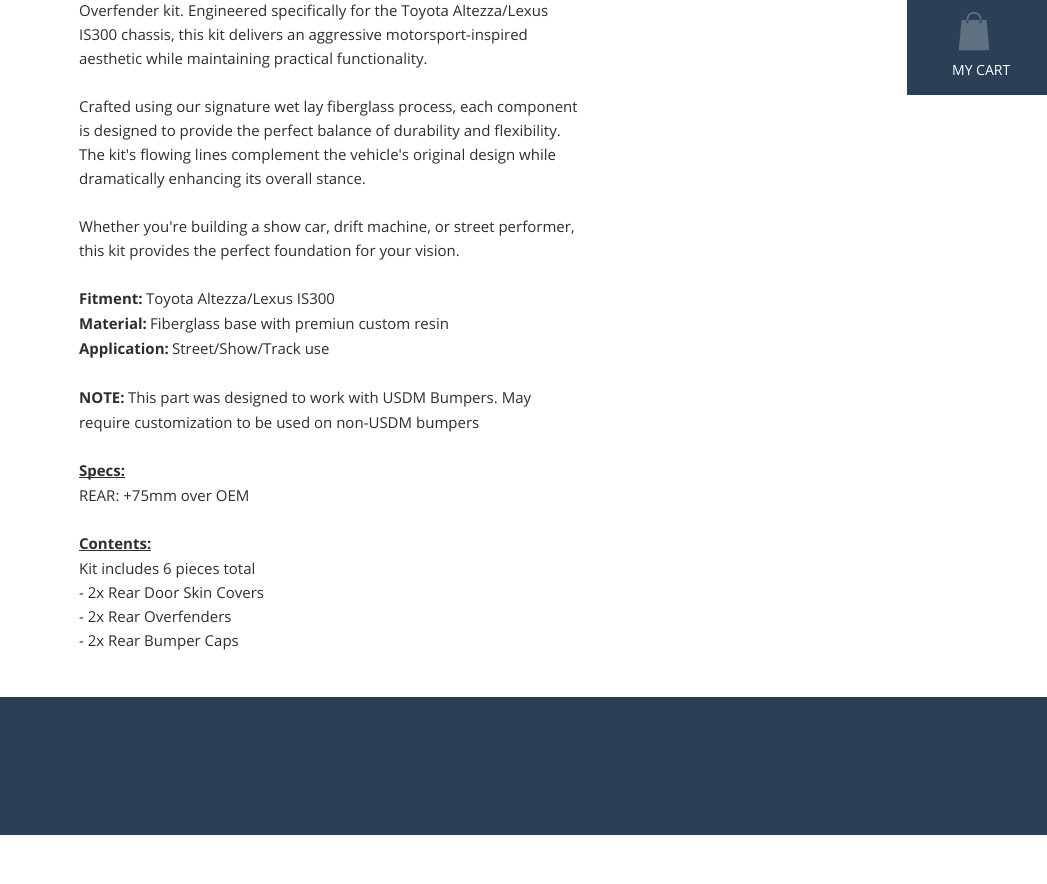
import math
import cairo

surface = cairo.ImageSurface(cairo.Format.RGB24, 1047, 884)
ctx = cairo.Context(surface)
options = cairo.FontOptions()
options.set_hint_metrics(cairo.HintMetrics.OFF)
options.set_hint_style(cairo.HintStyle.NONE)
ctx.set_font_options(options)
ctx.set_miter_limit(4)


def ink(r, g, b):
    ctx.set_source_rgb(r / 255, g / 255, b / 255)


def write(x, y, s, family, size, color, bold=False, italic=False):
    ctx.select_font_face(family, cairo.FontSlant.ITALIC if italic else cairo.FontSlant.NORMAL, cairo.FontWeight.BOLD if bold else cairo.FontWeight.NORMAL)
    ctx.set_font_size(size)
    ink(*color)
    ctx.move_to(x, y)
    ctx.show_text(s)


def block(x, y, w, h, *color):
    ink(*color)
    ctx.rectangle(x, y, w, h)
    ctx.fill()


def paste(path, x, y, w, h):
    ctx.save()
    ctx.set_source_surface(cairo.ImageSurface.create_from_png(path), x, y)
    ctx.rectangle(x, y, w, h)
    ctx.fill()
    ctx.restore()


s1 = dict(family="Open Sans", size=15, color=(47, 46, 46))
s2 = dict(family="Open Sans", size=15, color=(47, 46, 46), bold=True)
s3 = dict(family="Open Sans", size=14, color=(255, 255, 255))

ink(255, 255, 255)
ctx.paint()
write(79, 16, "Overfender kit. Engineered specifically for the Toyota Altezza/Lexus", **s1)
write(79, 40, "IS300 chassis, this kit delivers an aggressive motorsport-inspired", **s1)
write(79, 64, "aesthetic while maintaining practical functionality.", **s1)
write(79, 112, "Crafted using our signature wet lay fiberglass process, each component", **s1)
write(79, 136, "is designed to provide the perfect balance of durability and flexibility.", **s1)
write(79, 160, "The kit's flowing lines complement the vehicle's original design while", **s1)
write(79, 184, "dramatically enhancing its overall stance.", **s1)
write(79, 232, "Whether you're building a show car, drift machine, or street performer,", **s1)
write(79, 256, "this kit provides the perfect foundation for your vision.", **s1)
write(79, 304, "Fitment:", **s2)
write(146, 304, "Toyota Altezza/Lexus IS300", **s1)
write(79, 329, "Material:", **s2)
write(150, 329, "Fiberglass base with premiun custom resin", **s1)
write(79, 354, "Application:", **s2)
write(172, 354, "Street/Show/Track use", **s1)
write(79, 403, "NOTE:", **s2)
write(128, 403, "This part was designed to work with USDM Bumpers. May", **s1)
write(79, 428, "require customization to be used on non-USDM bumpers", **s1)
block(79, 477, 46, 1, 47, 46, 46)
write(79, 476, "Specs:", **s2)
write(79, 501, "REAR: +75mm over OEM", **s1)
write(79, 549, "Contents:", **s2)
block(79, 550, 72, 1, 47, 46, 46)
write(79, 574, "Kit includes 6 pieces total", **s1)
write(79, 598, "- 2x Rear Door Skin Covers", **s1)
write(79, 622, "- 2x Rear Overfenders", **s1)
write(79, 646, "- 2x Rear Bumper Caps", **s1)
block(907, 0, 140, 95, 41, 64, 87)
paste("pic1.png", 958, 12, 32, 39)
write(952, 75, "MY CART", **s3)
block(0, 697, 1047, 138, 41, 64, 87)
surface.write_to_png("screenshot.png")
